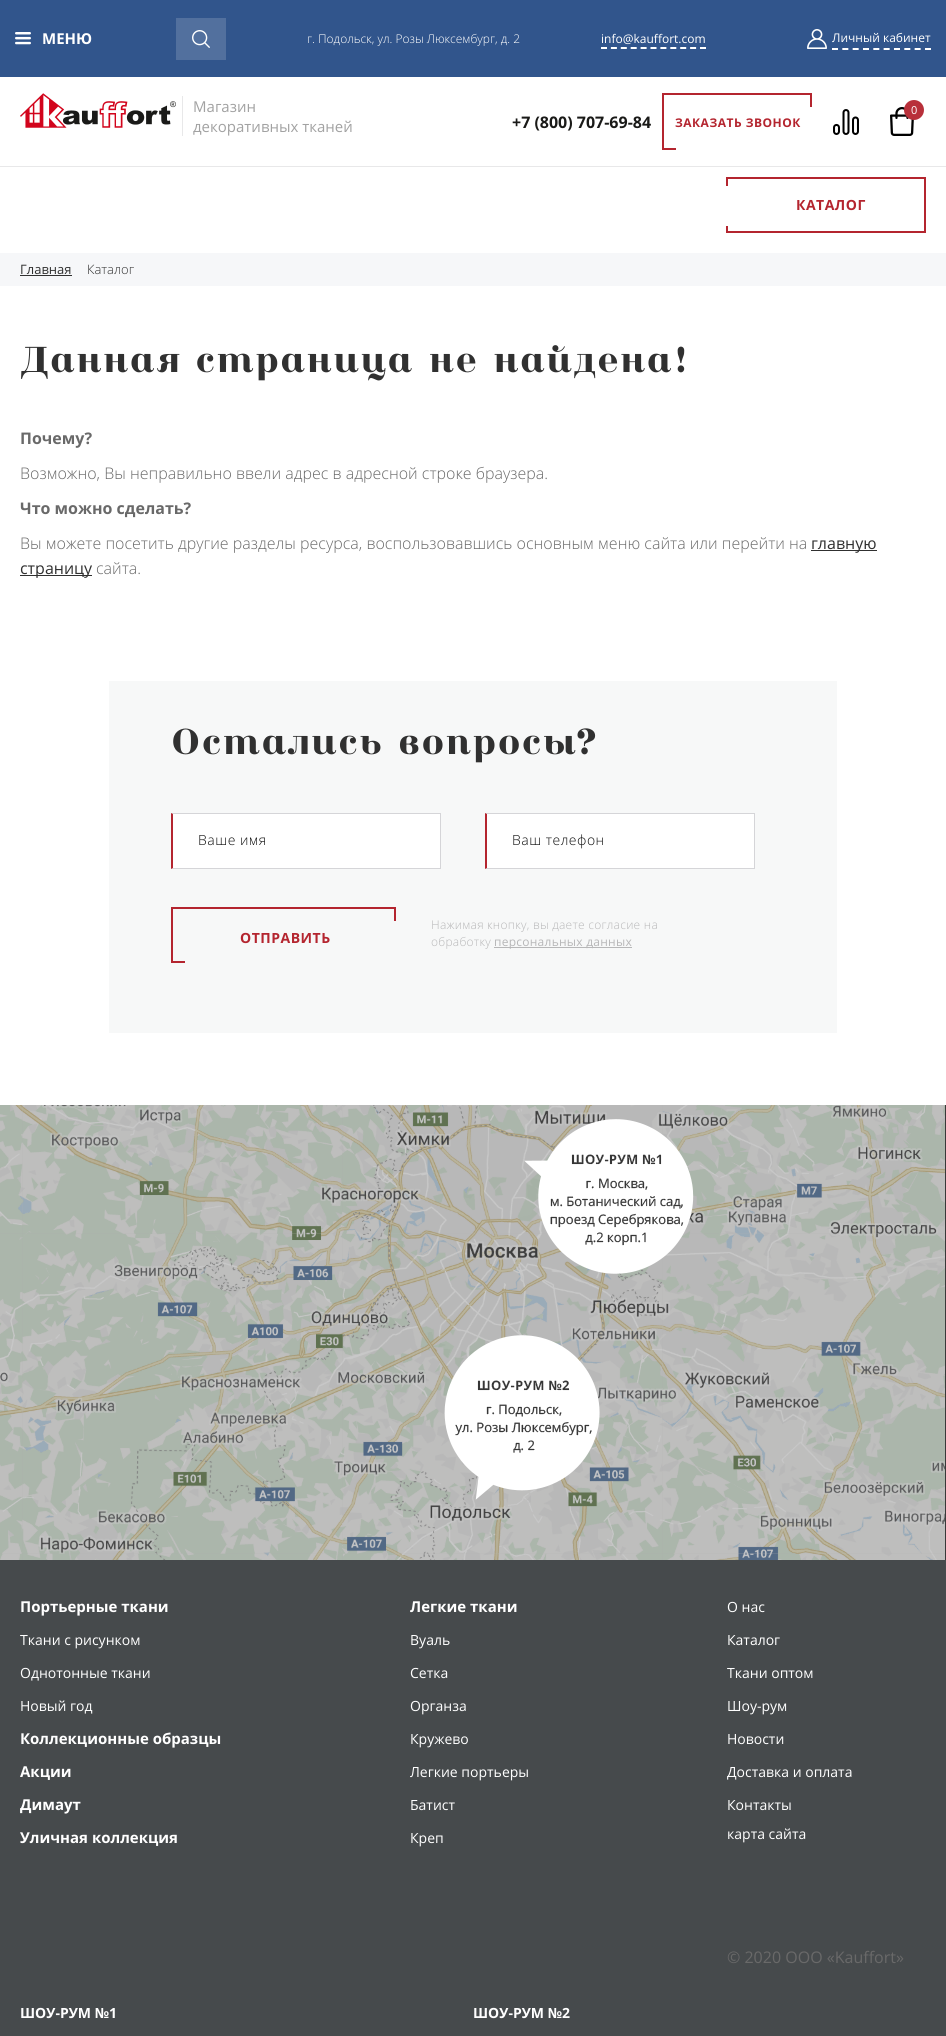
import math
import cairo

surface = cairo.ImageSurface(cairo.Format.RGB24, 946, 2036)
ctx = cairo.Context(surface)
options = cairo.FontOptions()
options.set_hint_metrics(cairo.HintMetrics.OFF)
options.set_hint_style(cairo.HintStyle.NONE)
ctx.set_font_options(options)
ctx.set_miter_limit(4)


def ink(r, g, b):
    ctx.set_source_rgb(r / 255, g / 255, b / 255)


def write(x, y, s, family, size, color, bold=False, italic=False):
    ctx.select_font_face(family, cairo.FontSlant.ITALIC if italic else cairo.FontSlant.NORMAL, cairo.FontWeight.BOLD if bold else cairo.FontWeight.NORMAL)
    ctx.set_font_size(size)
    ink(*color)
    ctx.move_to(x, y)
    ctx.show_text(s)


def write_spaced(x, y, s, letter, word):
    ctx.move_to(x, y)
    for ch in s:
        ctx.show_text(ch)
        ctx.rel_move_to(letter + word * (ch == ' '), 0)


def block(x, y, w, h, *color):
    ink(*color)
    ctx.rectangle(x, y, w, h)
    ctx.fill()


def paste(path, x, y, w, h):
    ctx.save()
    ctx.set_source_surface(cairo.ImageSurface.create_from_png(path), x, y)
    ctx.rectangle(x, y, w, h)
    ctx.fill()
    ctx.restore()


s1 = dict(family="Open Sans", size=15, color=(255, 255, 255), bold=True)
s2 = dict(family="Open Sans Light", size=12, color=(255, 255, 255))
s3 = dict(family="Open Sans", size=12, color=(255, 255, 255))
s4 = dict(family="Open Sans", size=15, color=(162, 162, 162))
s5 = dict(family="Open Sans", size=16, color=(26, 26, 24), bold=True)
s6 = dict(family="Open Sans", size=11, color=(255, 255, 255))
s7 = dict(family="Open Sans", size=13, color=(48, 48, 48))
s8 = dict(family="Open Sans Light", size=13, color=(48, 48, 48))
s9 = dict(family="Open Sans", size=16, color=(105, 105, 105), bold=True)
s10 = dict(family="Open Sans Light", size=16, color=(105, 105, 105))
s11 = dict(family="Open Sans", size=16, color=(48, 48, 48))
s12 = dict(family="Open Sans", size=14, color=(255, 255, 255))
s13 = dict(family="Open Sans", size=16, color=(105, 105, 105))
s14 = dict(family="Open Sans", size=14, color=(255, 255, 255), bold=True)

ink(255, 255, 255)
ctx.paint()
block(0, 0, 946, 77, 49, 85, 140)
paste("pic1.png", 15, 32, 16, 13)
write(42, 44, "МЕНЮ", **s1)
block(176, 18, 50, 42, 82, 112, 158)
paste("pic2.png", 192, 30, 18, 18)
write(307, 43, "г. Подольск, ул. Розы Люксембург, д. 2", **s2)
write(601, 43, "info@kauffort.com", **s3)
ctx.new_path()
ctx.move_to(601, 48)
ctx.line_to(706, 48)
ctx.set_dash([6, 3.9])
ctx.stroke()
paste("pic3.png", 807, 29, 20, 20)
ctx.new_path()
ctx.move_to(832, 49)
ctx.line_to(931, 49)
ctx.set_dash([6, 4.33])
ctx.stroke()
write(832, 42, "Личный кабинет", **s3)
paste("pic4.png", 20, 93, 156, 35)
block(182, 96, 1, 40, 232, 232, 233)
write(193, 112, "Магазин", **s4)
write(193, 132, "декоративных тканей", **s4)
write(512, 128, "+7 (800) 707-69-84", **s5)
block(662, 93, 150, 2, 180, 37, 47)
block(662, 93, 2, 57, 180, 37, 47)
block(810, 95, 2, 12, 180, 37, 47)
ctx.set_font_size(12)
write_spaced(675, 127, "ЗАКАЗАТЬ ЗВОНОК", 0.5, 0)
block(664, 148, 12, 2, 180, 37, 47)
paste("pic5.png", 833, 109, 26, 26)
paste("pic6.png", 890, 107, 24, 29)
ink(184, 48, 58)
ctx.arc(914, 110, 10, 0, 2 * math.pi)
ctx.fill()
write(911, 114, "0", **s6)
block(0, 166, 946, 1, 232, 232, 233)
ctx.rectangle(727, 178, 198, 54)
ink(180, 37, 47)
ctx.set_dash([])
ctx.stroke()
block(726, 186, 2, 40, 255, 255, 255)
ctx.select_font_face("Open Sans", cairo.FontSlant.NORMAL, cairo.FontWeight.BOLD)
ctx.set_font_size(14)
ink(180, 37, 47)
write_spaced(796, 210, "КАТАЛОГ", 0.5, 0)
block(0, 253, 946, 33, 246, 247, 249)
write(20, 274, "Главная", **s7)
block(20, 275, 52, 1, 48, 48, 48)
write(87, 274, "Каталог", **s8)
ctx.select_font_face("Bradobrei")
ctx.set_font_size(34)
write_spaced(20, 372, "Данная страница не найдена!", 1.35, 0)
write(20, 444, "Почему?", **s9)
write(20, 479, "Возможно, Вы неправильно ввели адрес в адресной строке браузера.", **s10)
write(20, 514, "Что можно сделать?", **s9)
write(20, 549, "Вы можете посетить другие разделы ресурса, воспользовавшись основным меню сайта или перейти на", **s10)
block(811, 550, 66, 1, 48, 48, 48)
write(811, 549, "главную", **s11)
block(20, 575, 72, 1, 48, 48, 48)
write(20, 574, "страницу", **s11)
write(96, 574, "сайта.", **s10)
block(0, 1560, 946, 476, 70, 74, 76)
block(109, 681, 728, 352, 247, 248, 248)
ctx.select_font_face("Bradobrei")
ctx.set_font_size(34)
ink(48, 48, 48)
write_spaced(171, 754, "Остались вопросы?", 1.35, 0)
block(173, 814, 267, 54, 255, 255, 255)
ink(213, 213, 216)
ctx.new_path()
ctx.move_to(171, 813)
ctx.line_to(441, 813)
ctx.line_to(440, 814)
ctx.line_to(173, 814)
ctx.close_path()
ctx.fill()
block(440, 813, 1, 56, 213, 213, 216)
ctx.new_path()
ctx.move_to(441, 869)
ctx.line_to(171, 869)
ctx.line_to(173, 868)
ctx.line_to(440, 868)
ctx.close_path()
ctx.fill()
ink(180, 37, 47)
ctx.new_path()
ctx.move_to(171, 869)
ctx.line_to(171, 813)
ctx.line_to(173, 814)
ctx.line_to(173, 868)
ctx.close_path()
ctx.fill()
ctx.select_font_face("Open Sans Light")
ctx.set_font_size(14)
ink(12, 12, 12)
write_spaced(198, 845, "Ваше имя", 0.5, 0)
block(487, 814, 267, 54, 255, 255, 255)
ink(213, 213, 216)
ctx.new_path()
ctx.move_to(485, 813)
ctx.line_to(755, 813)
ctx.line_to(754, 814)
ctx.line_to(487, 814)
ctx.close_path()
ctx.fill()
block(754, 813, 1, 56, 213, 213, 216)
ctx.new_path()
ctx.move_to(755, 869)
ctx.line_to(485, 869)
ctx.line_to(487, 868)
ctx.line_to(754, 868)
ctx.close_path()
ctx.fill()
ink(180, 37, 47)
ctx.new_path()
ctx.move_to(485, 869)
ctx.line_to(485, 813)
ctx.line_to(487, 814)
ctx.line_to(487, 868)
ctx.close_path()
ctx.fill()
ink(12, 12, 12)
write_spaced(512, 845, "Ваш телефон", 0.5, 0)
block(171, 907, 225, 2, 180, 37, 47)
block(171, 907, 2, 56, 180, 37, 47)
block(394, 909, 2, 12, 180, 37, 47)
ctx.select_font_face("Open Sans", cairo.FontSlant.NORMAL, cairo.FontWeight.BOLD)
write_spaced(240, 943, "ОТПРАВИТЬ", 0.5, 0)
block(173, 961, 12, 2, 180, 37, 47)
ctx.select_font_face("Open Sans Light")
ctx.set_font_size(12)
ink(183, 183, 184)
write_spaced(431, 929, "Нажимая кнопку, вы даете согласие на", 0.25, 0)
write_spaced(431, 946, "обработку", 0.25, 0)
block(494, 947, 138, 1, 183, 183, 184)
ctx.select_font_face("Open Sans")
write_spaced(494, 946, "персональных данных", 0.25, 0)
paste("pic7.png", 0, 1105, 946, 455)
write(20, 1612, "Портьерные ткани", **s1)
write(20, 1645, "Ткани с рисунком", **s12)
write(20, 1678, "Однотонные ткани", **s12)
write(20, 1711, "Новый год", **s12)
write(20, 1744, "Коллекционные образцы", **s1)
write(20, 1777, "Акции", **s1)
write(20, 1810, "Димаут", **s1)
write(20, 1843, "Уличная коллекция", **s1)
write(410, 1612, "Легкие ткани", **s1)
write(410, 1645, "Вуаль", **s12)
write(410, 1678, "Сетка", **s12)
write(410, 1711, "Органза", **s12)
write(410, 1744, "Кружево", **s12)
write(410, 1777, "Легкие портьеры", **s12)
write(410, 1810, "Батист", **s12)
write(410, 1843, "Креп", **s12)
write(727, 1612, "О нас", **s12)
write(727, 1645, "Каталог", **s12)
write(727, 1678, "Ткани оптом", **s12)
write(727, 1711, "Шоу-рум", **s12)
write(727, 1744, "Новости", **s12)
write(727, 1777, "Доставка и оплата", **s12)
write(727, 1810, "Контакты", **s12)
write(727, 1839, "карта сайта", **s12)
write(727, 1963, "© 2020 ООО «Kauffort»", **s13)
write(20, 2018, "ШОУ-РУМ №1", **s14)
write(473, 2018, "ШОУ-РУМ №2", **s14)
surface.write_to_png("screenshot.png")
